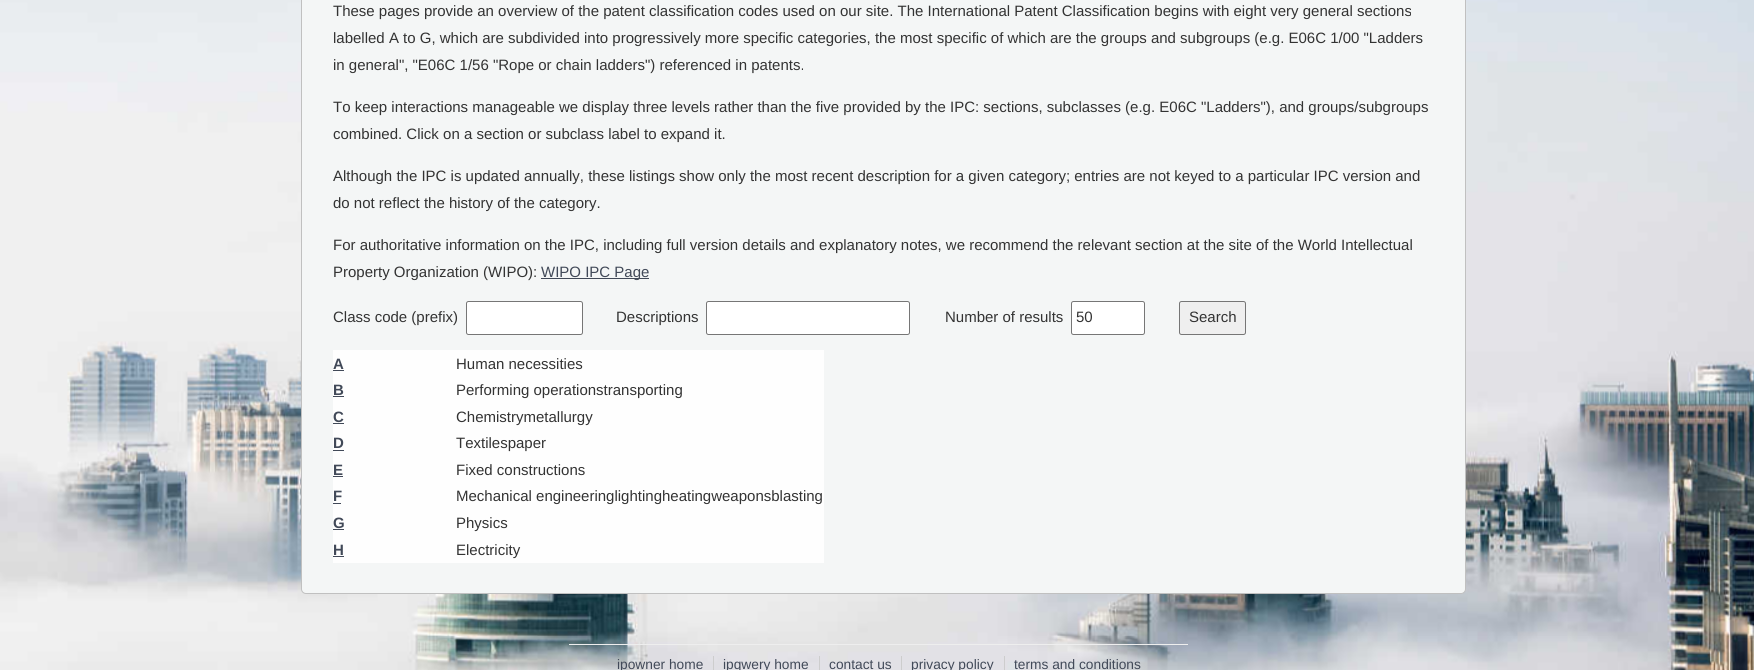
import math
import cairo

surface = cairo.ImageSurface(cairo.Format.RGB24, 1754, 670)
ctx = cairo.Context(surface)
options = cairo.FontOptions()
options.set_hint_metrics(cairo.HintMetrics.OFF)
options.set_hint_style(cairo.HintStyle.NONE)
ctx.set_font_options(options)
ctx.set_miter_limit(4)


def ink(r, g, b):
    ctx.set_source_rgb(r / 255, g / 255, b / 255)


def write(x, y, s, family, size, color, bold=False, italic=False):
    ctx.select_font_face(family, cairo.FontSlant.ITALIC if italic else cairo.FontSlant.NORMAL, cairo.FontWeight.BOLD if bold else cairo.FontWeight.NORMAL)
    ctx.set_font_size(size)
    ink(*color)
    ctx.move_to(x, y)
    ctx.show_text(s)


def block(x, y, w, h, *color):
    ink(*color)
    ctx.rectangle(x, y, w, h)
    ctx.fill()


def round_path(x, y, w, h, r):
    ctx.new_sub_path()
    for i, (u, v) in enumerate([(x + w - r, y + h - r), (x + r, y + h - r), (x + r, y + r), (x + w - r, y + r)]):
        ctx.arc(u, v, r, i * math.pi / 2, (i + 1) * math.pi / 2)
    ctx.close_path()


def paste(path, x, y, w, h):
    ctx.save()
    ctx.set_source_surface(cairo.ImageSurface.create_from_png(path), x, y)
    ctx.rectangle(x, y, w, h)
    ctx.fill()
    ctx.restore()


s1 = dict(family="Liberation Sans", size=15, color=(51, 51, 51))
s2 = dict(family="Liberation Sans", size=15, color=(65, 73, 88))
s3 = dict(family="Liberation Sans", size=15, color=(65, 73, 88), bold=True)
s4 = dict(family="Liberation Sans", size=13.75, color=(65, 73, 88))

ink(255, 255, 255)
ctx.paint()
paste("pic1.png", 0, 0, 1754, 670)
ink(244, 246, 246)
round_path(301.5, -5.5, 1164, 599, 4.5)
ctx.fill_preserve()
ink(192, 192, 192)
ctx.set_line_width(1)
ctx.stroke()
write(333, 16, "These pages provide an overview of the patent classification codes used on our site. The International Patent Classification begins with eight very general sections", **s1)
write(333, 43, "labelled A to G, which are subdivided into progressively more specific categories, the most specific of which are the groups and subgroups (e.g. E06C 1/00 \"Ladders", **s1)
write(333, 70, "in general\", \"E06C 1/56 \"Rope or chain ladders\") referenced in patents.", **s1)
write(333, 112, "To keep interactions manageable we display three levels rather than the five provided by the IPC: sections, subclasses (e.g. E06C \"Ladders\"), and groups/subgroups", **s1)
write(333, 139, "combined. Click on a section or subclass label to expand it.", **s1)
write(333, 181, "Although the IPC is updated annually, these listings show only the most recent description for a given category; entries are not keyed to a particular IPC version and", **s1)
write(333, 208, "do not reflect the history of the category.", **s1)
write(333, 250, "For authoritative information on the IPC, including full version details and explanatory notes, we recommend the relevant section at the site of the World Intellectual", **s1)
write(333, 277, "Property Organization (WIPO):", **s1)
block(541, 278, 108, 1, 65, 73, 88)
write(541, 277, "WIPO IPC Page", **s2)
write(333, 322, "Class code (prefix)", **s1)
ink(255, 255, 255)
round_path(466.5, 301.5, 116, 33, 2)
ctx.fill_preserve()
ink(118, 118, 118)
ctx.stroke()
write(616, 322, "Descriptions", **s1)
ink(255, 255, 255)
round_path(706.5, 301.5, 203, 33, 2)
ctx.fill_preserve()
ink(118, 118, 118)
ctx.stroke()
write(945, 322, "Number of results", **s1)
ink(255, 255, 255)
round_path(1071.5, 301.5, 73, 33, 2)
ctx.fill_preserve()
ink(118, 118, 118)
ctx.stroke()
write(1076, 322, "50", **s1)
ink(239, 239, 239)
round_path(1179.5, 301.5, 66, 33, 2)
ctx.fill_preserve()
ink(118, 118, 118)
ctx.stroke()
write(1189, 322, "Search", **s1)
block(333, 350, 491, 213, 254, 254, 254)
write(333, 369, "A", **s3)
block(333, 370, 11, 1, 65, 73, 88)
write(456, 369, "Human necessities", **s1)
write(333, 395, "B", **s3)
block(333, 396, 11, 1, 65, 73, 88)
write(456, 395, "Performing operationstransporting", **s1)
write(333, 422, "C", **s3)
block(333, 423, 11, 1, 65, 73, 88)
write(456, 422, "Chemistrymetallurgy", **s1)
write(333, 448, "D", **s3)
block(333, 450, 11, 1, 65, 73, 88)
write(456, 448, "Textilespaper", **s1)
write(333, 475, "E", **s3)
block(333, 476, 10, 1, 65, 73, 88)
write(456, 475, "Fixed constructions", **s1)
write(333, 501, "F", **s3)
block(333, 503, 8, 1, 65, 73, 88)
write(456, 501, "Mechanical engineeringlightingheatingweaponsblasting", **s1)
write(333, 528, "G", **s3)
block(333, 529, 11, 1, 65, 73, 88)
write(456, 528, "Physics", **s1)
write(333, 555, "H", **s3)
block(333, 556, 11, 1, 65, 73, 88)
write(456, 555, "Electricity", **s1)
block(569, 644, 619, 1, 238, 238, 238)
write(617, 669, "ipowner home", **s4)
write(723, 669, "ipqwery home", **s4)
block(713, 656, 1, 14, 205, 205, 205)
write(829, 669, "contact us", **s4)
block(819, 656, 1, 14, 205, 205, 205)
write(911, 669, "privacy policy", **s4)
block(901, 656, 1, 14, 205, 205, 205)
write(1014, 669, "terms and conditions", **s4)
block(1004, 656, 1, 14, 205, 205, 205)
surface.write_to_png("screenshot.png")
